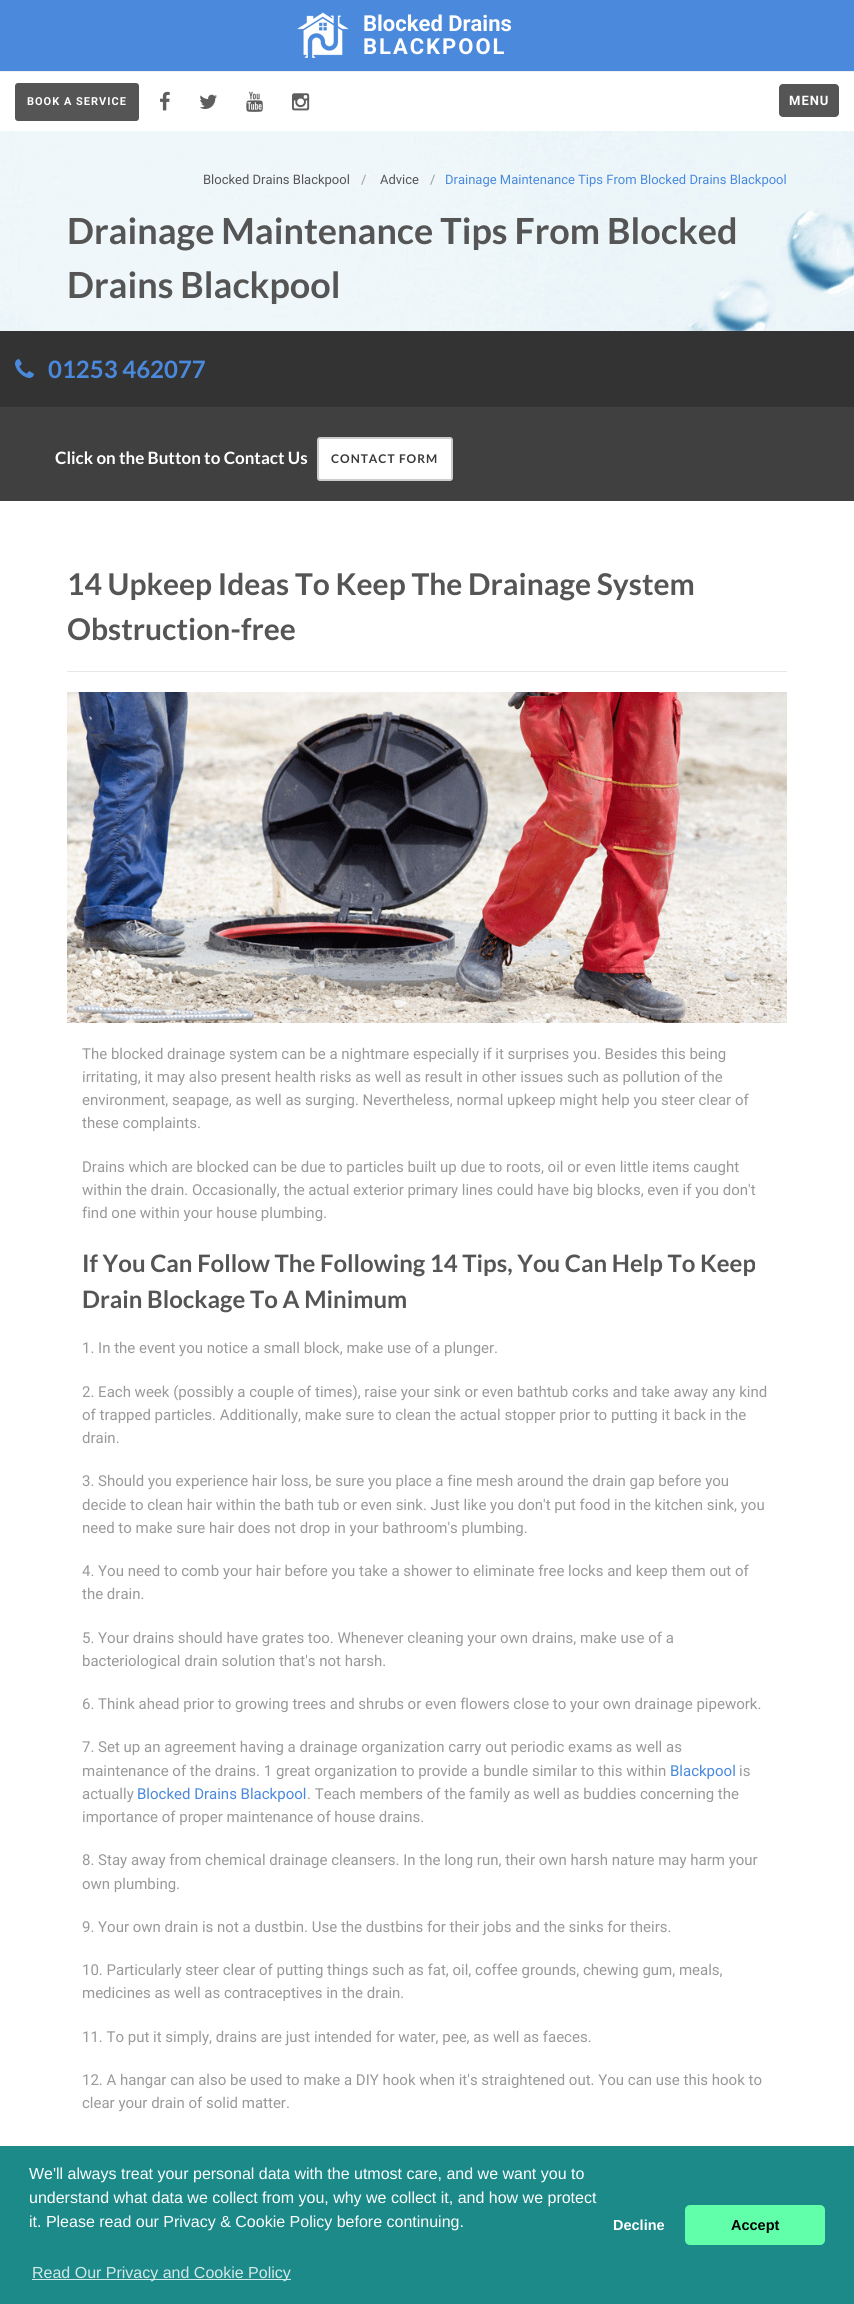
import math
import cairo

surface = cairo.ImageSurface(cairo.Format.RGB24, 854, 2304)
ctx = cairo.Context(surface)
options = cairo.FontOptions()
options.set_hint_metrics(cairo.HintMetrics.OFF)
options.set_hint_style(cairo.HintStyle.NONE)
ctx.set_font_options(options)
ctx.set_miter_limit(4)


def ink(r, g, b):
    ctx.set_source_rgb(r / 255, g / 255, b / 255)


def write(x, y, s, family, size, color, bold=False, italic=False):
    ctx.select_font_face(family, cairo.FontSlant.ITALIC if italic else cairo.FontSlant.NORMAL, cairo.FontWeight.BOLD if bold else cairo.FontWeight.NORMAL)
    ctx.set_font_size(size)
    ink(*color)
    ctx.move_to(x, y)
    ctx.show_text(s)


def write_spaced(x, y, s, letter, word):
    ctx.move_to(x, y)
    for ch in s:
        ctx.show_text(ch)
        ctx.rel_move_to(letter + word * (ch == ' '), 0)


def block(x, y, w, h, *color):
    ink(*color)
    ctx.rectangle(x, y, w, h)
    ctx.fill()


def round_path(x, y, w, h, r):
    ctx.new_sub_path()
    for i, (u, v) in enumerate([(x + w - r, y + h - r), (x + r, y + h - r), (x + r, y + r), (x + w - r, y + r)]):
        ctx.arc(u, v, r, i * math.pi / 2, (i + 1) * math.pi / 2)
    ctx.close_path()


def paste(path, x, y, w, h):
    ctx.save()
    ctx.set_source_surface(cairo.ImageSurface.create_from_png(path), x, y)
    ctx.rectangle(x, y, w, h)
    ctx.fill()
    ctx.restore()


s1 = dict(family="Roboto", size=22, color=(255, 255, 255), bold=True)
s2 = dict(family="Roboto", size=13, color=(85, 85, 85))
s3 = dict(family="Roboto", size=13, color=(153, 153, 153))
s4 = dict(family="Roboto", size=13, color=(74, 137, 220))
s5 = dict(family="Lato", size=36, color=(85, 85, 85), bold=True)
s6 = dict(family="Lato", size=24, color=(74, 137, 220), bold=True)
s7 = dict(family="Lato", size=17, color=(255, 255, 255), bold=True)
s8 = dict(family="Lato", size=30, color=(85, 85, 85), bold=True)
s9 = dict(family="Roboto", size=15, color=(153, 153, 153))
s10 = dict(family="Lato", size=24, color=(85, 85, 85), bold=True)
s11 = dict(family="Roboto", size=15, color=(74, 137, 220))
s12 = dict(family="Liberation Sans", size=16, color=(255, 255, 255))
s13 = dict(family="Liberation Sans", size=16, color=(210, 232, 232))
s14 = dict(family="Liberation Sans", size=14.5, color=(255, 255, 255), bold=True)
s15 = dict(family="Liberation Sans", size=14.5, color=(0, 0, 0), bold=True)

ink(255, 255, 255)
ctx.paint()
block(0, 0, 854, 71, 74, 137, 220)
paste("pic1.png", 297, 12, 52, 46)
write(363, 31, "Blocked Drains", **s1)
write_spaced(363, 54, "BLACKPOOL", 2, 0)
block(0, 71, 854, 1, 238, 238, 238)
ink(85, 85, 85)
round_path(15, 83, 124, 38, 3)
ctx.fill()
ctx.set_font_size(11)
ink(255, 255, 255)
write_spaced(27, 105, "BOOK A SERVICE", 1, 0)
paste("pic2.png", 160, 91, 10, 20)
paste("pic3.png", 199, 94, 18, 15)
paste("pic4.png", 246, 91, 17, 21)
paste("pic5.png", 292, 93, 18, 18)
ink(85, 85, 85)
round_path(779, 84, 60, 33, 4)
ctx.fill()
ctx.set_font_size(13)
ink(255, 255, 255)
write_spaced(789, 105, "MENU", 1, 0)
paste("pic6.png", 0, 131, 854, 200)
write(203, 184, "Blocked Drains Blackpool", **s2)
write(361, 184, "/", **s3)
write(380, 184, "Advice", **s2)
write(430, 184, "/", **s3)
write(445, 184, "Drainage Maintenance Tips From Blocked Drains Blackpool", **s4)
write(67, 244, "Drainage Maintenance Tips From Blocked", **s5)
write(67, 298, "Drains Blackpool", **s5)
block(0, 407, 854, 94, 64, 64, 64)
block(0, 331, 854, 76, 51, 51, 51)
paste("pic7.png", 15, 359, 19, 19)
write(48, 378, "01253 462077", **s6)
write(55, 464, "Click on the Button to Contact Us", **s7)
round_path(318, 438, 134, 42, 2)
ctx.fill_preserve()
ink(204, 204, 204)
ctx.stroke()
ctx.set_font_size(12)
ink(58, 58, 58)
write_spaced(331, 463, "CONTACT FORM", 1, 0)
write(67, 595, "14 Upkeep Ideas To Keep The Drainage System", **s8)
write(67, 640, "Obstruction-free", **s8)
block(67, 671, 720, 1, 232, 232, 232)
paste("pic8.png", 67, 692, 720, 331)
write(82, 1059, "The blocked drainage system can be a nightmare especially if it surprises you. Besides this being", **s9)
write(82, 1082, "irritating, it may also present health risks as well as result in other issues such as pollution of the", **s9)
write(82, 1105, "environment, seapage, as well as surging. Nevertheless, normal upkeep might help you steer clear of", **s9)
write(82, 1128, "these complaints.", **s9)
write(82, 1172, "Drains which are blocked can be due to particles built up due to roots, oil or even little items caught", **s9)
write(82, 1195, "within the drain. Occasionally, the actual exterior primary lines could have big blocks, even if you don't", **s9)
write(82, 1218, "find one within your house plumbing.", **s9)
write(82, 1272, "If You Can Follow The Following 14 Tips, You Can Help To Keep", **s10)
write(82, 1308, "Drain Blockage To A Minimum", **s10)
write(82, 1353, "1. In the event you notice a small block, make use of a plunger.", **s9)
write(82, 1397, "2. Each week (possibly a couple of times), raise your sink or even bathtub corks and take away any kind", **s9)
write(82, 1420, "of trapped particles. Additionally, make sure to clean the actual stopper prior to putting it back in the", **s9)
write(82, 1443, "drain.", **s9)
write(82, 1486, "3. Should you experience hair loss, be sure you place a fine mesh around the drain gap before you", **s9)
write(82, 1510, "decide to clean hair within the bath tub or even sink. Just like you don't put food in the kitchen sink, you", **s9)
write(82, 1533, "need to make sure hair does not drop in your bathroom's plumbing.", **s9)
write(82, 1576, "4. You need to comb your hair before you take a shower to eliminate free locks and keep them out of", **s9)
write(82, 1599, "the drain.", **s9)
write(82, 1643, "5. Your drains should have grates too. Whenever cleaning your own drains, make use of a", **s9)
write(82, 1666, "bacteriological drain solution that's not harsh.", **s9)
write(82, 1709, "6. Think ahead prior to growing trees and shrubs or even flowers close to your own drainage pipework.", **s9)
write(82, 1752, "7. Set up an agreement having a drainage organization carry out periodic exams as well as", **s9)
write(82, 1776, "maintenance of the drains. 1 great organization to provide a bundle similar to this within", **s9)
write(670, 1776, "Blackpool", **s11)
write(739, 1776, "is", **s9)
write(82, 1799, "actually", **s9)
write(137, 1799, "Blocked Drains Blackpool", **s11)
write(307, 1799, ". Teach members of the family as well as buddies concerning the", **s9)
write(82, 1822, "importance of proper maintenance of house drains.", **s9)
write(82, 1865, "8. Stay away from chemical drainage cleansers. In the long run, their own harsh nature may harm your", **s9)
write(82, 1889, "own plumbing.", **s9)
write(82, 1932, "9. Your own drain is not a dustbin. Use the dustbins for their jobs and the sinks for theirs.", **s9)
write(82, 1975, "10. Particularly steer clear of putting things such as fat, oil, coffee grounds, chewing gum, meals,", **s9)
write(82, 1998, "medicines as well as contraceptives in the drain.", **s9)
write(82, 2042, "11. To put it simply, drains are just intended for water, pee, as well as faeces.", **s9)
write(82, 2085, "12. A hangar can also be used to make a DIY hook when it's straightened out. You can use this hook to", **s9)
write(82, 2108, "clear your drain of solid matter.", **s9)
block(0, 2146, 854, 158, 29, 138, 138)
write(29, 2179, "We'll always treat your personal data with the utmost care, and we want you to", **s12)
write(29, 2203, "understand what data we collect from you, why we collect it, and how we protect", **s12)
write(29, 2227, "it. Please read our Privacy & Cookie Policy before continuing.", **s12)
block(32, 2279, 259, 1, 210, 232, 232)
write(32, 2278, "Read Our Privacy and Cookie Policy", **s13)
write(613, 2230, "Decline", **s14)
ink(98, 255, 170)
round_path(685, 2205, 140, 40, 5)
ctx.fill()
write(731, 2230, "Accept", **s15)
surface.write_to_png("screenshot.png")
